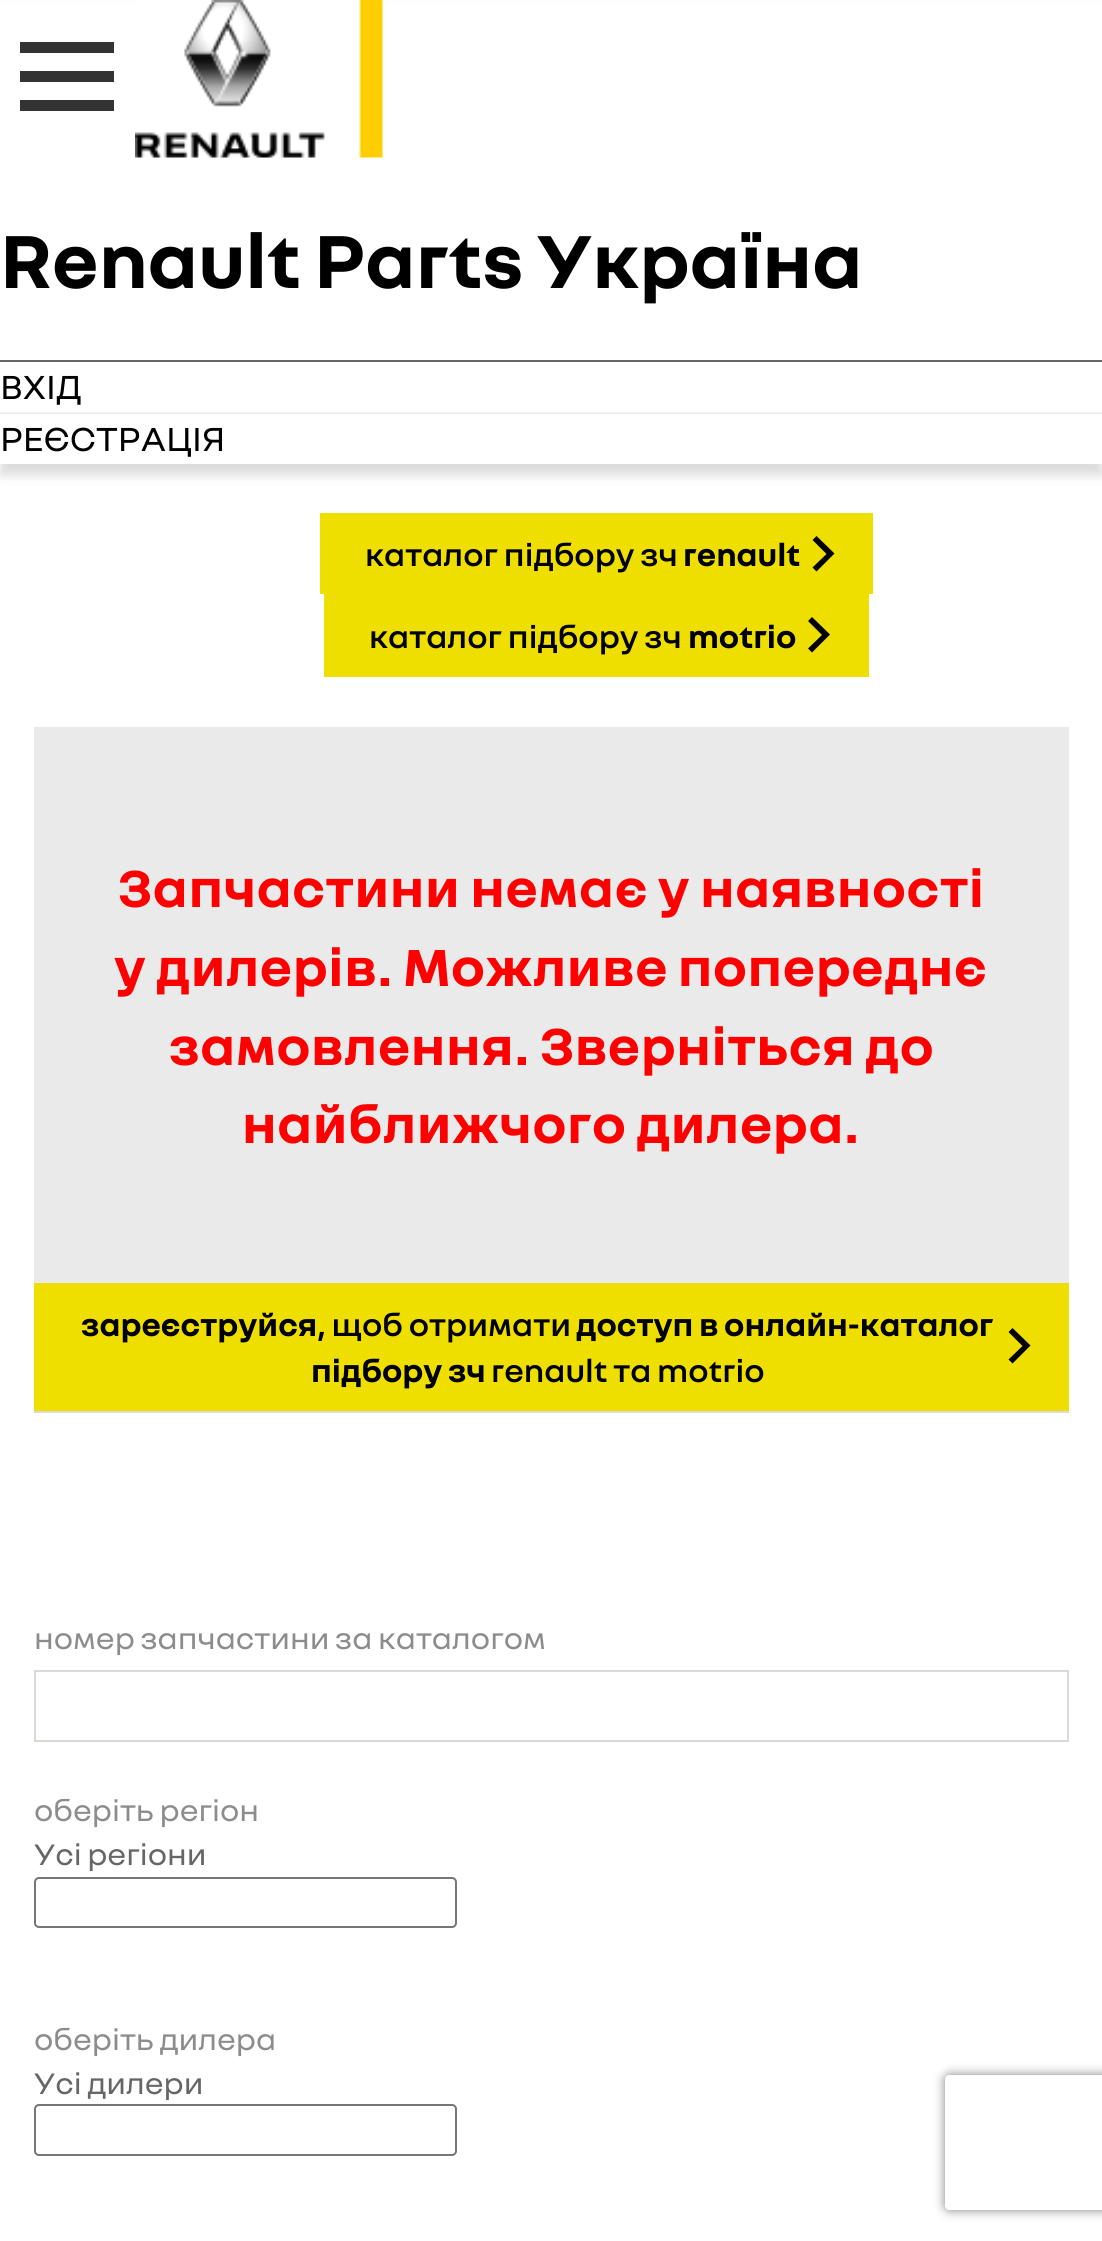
import math
import cairo

surface = cairo.ImageSurface(cairo.Format.RGB24, 1102, 2241)
ctx = cairo.Context(surface)
options = cairo.FontOptions()
options.set_hint_metrics(cairo.HintMetrics.OFF)
options.set_hint_style(cairo.HintStyle.NONE)
ctx.set_font_options(options)
ctx.set_miter_limit(4)


def ink(r, g, b):
    ctx.set_source_rgb(r / 255, g / 255, b / 255)


def write(x, y, s, family, size, color, bold=False, italic=False):
    ctx.select_font_face(family, cairo.FontSlant.ITALIC if italic else cairo.FontSlant.NORMAL, cairo.FontWeight.BOLD if bold else cairo.FontWeight.NORMAL)
    ctx.set_font_size(size)
    ink(*color)
    ctx.move_to(x, y)
    ctx.show_text(s)


def write_spaced(x, y, s, letter, word):
    ctx.move_to(x, y)
    for ch in s:
        ctx.show_text(ch)
        ctx.rel_move_to(letter + word * (ch == ' '), 0)


def block(x, y, w, h, *color):
    ink(*color)
    ctx.rectangle(x, y, w, h)
    ctx.fill()


def round_path(x, y, w, h, r):
    ctx.new_sub_path()
    for i, (u, v) in enumerate([(x + w - r, y + h - r), (x + r, y + h - r), (x + r, y + r), (x + w - r, y + r)]):
        ctx.arc(u, v, r, i * math.pi / 2, (i + 1) * math.pi / 2)
    ctx.close_path()


def blur_box(x, y, w, h, r, blur, alpha):
    ctx.push_group_with_content(cairo.Content.ALPHA)
    ctx.set_operator(cairo.Operator.SOURCE)
    for i in range(15, -16, -2):
        e = blur * i / 6
        if min(w, h) + 2 * e > 0:
            ctx.set_source_rgba(0, 0, 0, alpha * math.erfc((i - 1) / 8.5) / 2)
            round_path(x - e, y - e, w + 2 * e, h + 2 * e, max(0, min(r + e + blur * .6, min(w, h) / 2 + e)))
            ctx.fill()
    ctx.mask(ctx.pop_group())


def paste(path, x, y, w, h):
    ctx.save()
    ctx.set_source_surface(cairo.ImageSurface.create_from_png(path), x, y)
    ctx.rectangle(x, y, w, h)
    ctx.fill()
    ctx.restore()


s1 = dict(family="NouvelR", size=81, color=(0, 0, 0), bold=True)
s2 = dict(family="NouvelR", size=36, color=(0, 0, 0))
s3 = dict(family="NouvelR SemiBold", size=33.75, color=(0, 0, 0))
s4 = dict(family="NouvelR", size=33.75, color=(0, 0, 0), bold=True)
s5 = dict(family="NouvelR", size=32, color=(140, 140, 139))
s6 = dict(family="NouvelR", size=32, color=(102, 102, 102))

ink(255, 255, 255)
ctx.paint()
ink(219, 219, 219)
blur_box(0, 11, 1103, 464, 0, 5.5, 1)
block(0, 3, 1102, 461, 255, 255, 255)
ink(51, 51, 51)
ctx.new_path()
ctx.move_to(20, 42)
ctx.line_to(114, 42)
ctx.line_to(114, 53)
ctx.line_to(20, 53)
ctx.close_path()
ctx.move_to(20, 71)
ctx.line_to(114, 71)
ctx.line_to(114, 82)
ctx.line_to(20, 82)
ctx.close_path()
ctx.move_to(20, 100)
ctx.line_to(114, 100)
ctx.line_to(114, 111)
ctx.line_to(20, 111)
ctx.close_path()
ctx.fill()
paste("pic1.png", 135, 0, 248, 158)
write(0, 288, "Renault Parts Україна", **s1)
block(0, 360, 1102, 2, 102, 102, 102)
block(0, 412, 1102, 2, 238, 238, 238)
write(0, 399, "ВХІД", **s2)
write(0, 451, "РЕЄСТРАЦІЯ", **s2)
block(320, 513, 553, 81, 239, 223, 0)
write(365, 566, "каталог підбору зч", **s3)
write(683, 566, "renault", **s4)
ctx.new_path()
ctx.move_to(826.5, 554)
ctx.line_to(812.5, 540)
ctx.line_to(816.5, 536)
ctx.line_to(834.5, 553.5)
ctx.line_to(816.5, 571.5)
ctx.line_to(812.5, 567.5)
ctx.close_path()
ctx.fill()
block(324, 594, 545, 83, 239, 223, 0)
write(369, 648, "каталог підбору зч", **s3)
write(688, 648, "motrio", **s4)
ctx.new_path()
ctx.move_to(822, 635)
ctx.line_to(808, 621)
ctx.line_to(812, 617)
ctx.line_to(830, 634.5)
ctx.line_to(812, 652.5)
ctx.line_to(808, 648.5)
ctx.close_path()
ctx.fill()
block(34, 727, 1035, 556, 234, 234, 234)
ctx.set_font_size(56.25)
ink(255, 0, 0)
write_spaced(118, 907, "Запчастини немає у наявності", 0.55, 0)
write_spaced(114, 986, "у дилерів. Можливе попереднє", 0.55, 0)
write_spaced(169, 1065, "замовлення. Зверніться до", 0.55, 0)
write_spaced(242, 1143, "найближчого дилера.", 0.55, 0)
block(34, 1283, 1035, 128, 239, 223, 0)
write(81, 1336, "зареєструйся", **s4)
write(318, 1336, ", щоб отримати", **s3)
write(576, 1336, "доступ в онлайн-каталог", **s4)
ctx.new_path()
ctx.move_to(1022.5, 1346)
ctx.line_to(1008.5, 1332)
ctx.line_to(1012.5, 1328)
ctx.line_to(1030.5, 1345.5)
ctx.line_to(1012.5, 1363.5)
ctx.line_to(1008.5, 1359.5)
ctx.close_path()
ctx.fill()
write(311, 1382, "підбору зч", **s4)
write(491, 1382, "renault та motrio", **s3)
block(34, 1411, 1035, 2, 219, 219, 219)
write(34, 1649, "номер запчастини за каталогом", **s5)
ctx.rectangle(35, 1671, 1033, 70)
ink(217, 217, 214)
ctx.stroke()
write(34, 1821, "оберіть регіон", **s5)
write(34, 1865, "Усі регіони", **s6)
round_path(35, 1878, 421, 49, 4)
ink(118, 118, 118)
ctx.stroke()
write(34, 2050, "оберіть дилера", **s5)
write(34, 2094, "Усі дилери", **s6)
round_path(35, 2105, 421, 50, 4)
ink(118, 118, 118)
ctx.stroke()
ctx.save()
ctx.set_fill_rule(cairo.FillRule.EVEN_ODD)
ctx.new_path()
ctx.move_to(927, 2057)
ctx.line_to(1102, 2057)
ctx.line_to(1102, 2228)
ctx.line_to(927, 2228)
ctx.close_path()
ctx.move_to(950, 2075)
ctx.line_to(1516, 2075)
ctx.curve_to(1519, 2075, 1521, 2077, 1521, 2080)
ctx.line_to(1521, 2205)
ctx.curve_to(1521, 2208, 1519, 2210, 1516, 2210)
ctx.line_to(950, 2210)
ctx.curve_to(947, 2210, 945, 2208, 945, 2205)
ctx.line_to(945, 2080)
ctx.curve_to(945, 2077, 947, 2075, 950, 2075)
ctx.close_path()
ctx.clip()
ink(128, 128, 128)
blur_box(945, 2075, 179, 135, 5, 5.5, 1)
ctx.restore()
surface.write_to_png("screenshot.png")
